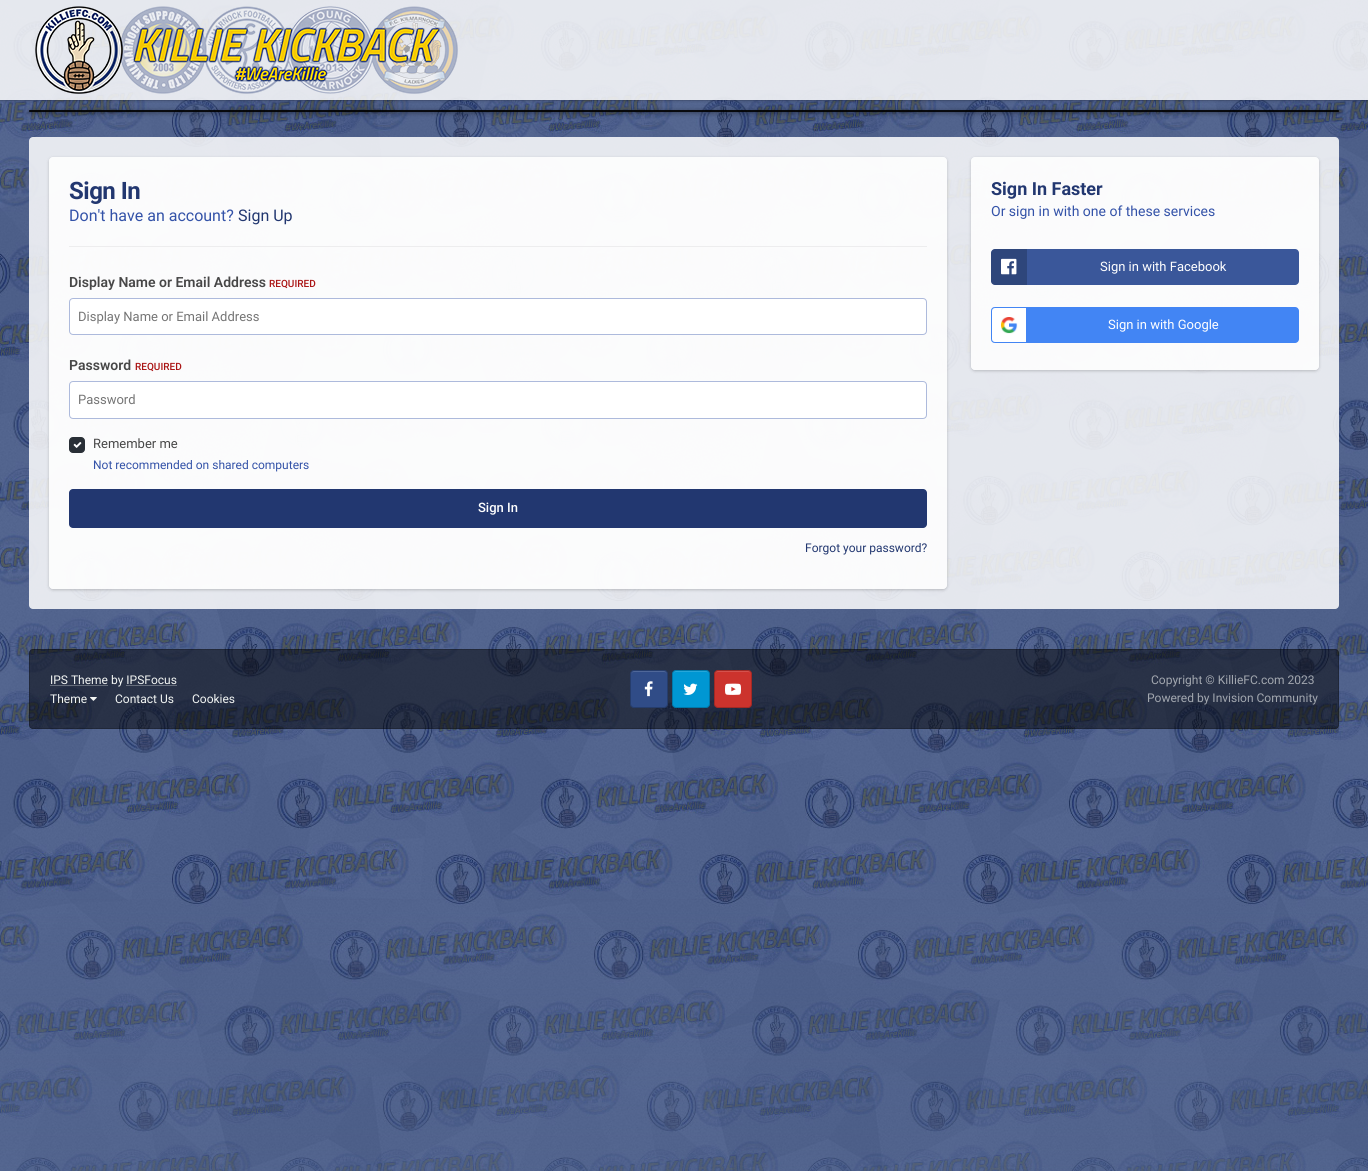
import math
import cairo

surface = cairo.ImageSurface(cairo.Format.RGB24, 1368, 1171)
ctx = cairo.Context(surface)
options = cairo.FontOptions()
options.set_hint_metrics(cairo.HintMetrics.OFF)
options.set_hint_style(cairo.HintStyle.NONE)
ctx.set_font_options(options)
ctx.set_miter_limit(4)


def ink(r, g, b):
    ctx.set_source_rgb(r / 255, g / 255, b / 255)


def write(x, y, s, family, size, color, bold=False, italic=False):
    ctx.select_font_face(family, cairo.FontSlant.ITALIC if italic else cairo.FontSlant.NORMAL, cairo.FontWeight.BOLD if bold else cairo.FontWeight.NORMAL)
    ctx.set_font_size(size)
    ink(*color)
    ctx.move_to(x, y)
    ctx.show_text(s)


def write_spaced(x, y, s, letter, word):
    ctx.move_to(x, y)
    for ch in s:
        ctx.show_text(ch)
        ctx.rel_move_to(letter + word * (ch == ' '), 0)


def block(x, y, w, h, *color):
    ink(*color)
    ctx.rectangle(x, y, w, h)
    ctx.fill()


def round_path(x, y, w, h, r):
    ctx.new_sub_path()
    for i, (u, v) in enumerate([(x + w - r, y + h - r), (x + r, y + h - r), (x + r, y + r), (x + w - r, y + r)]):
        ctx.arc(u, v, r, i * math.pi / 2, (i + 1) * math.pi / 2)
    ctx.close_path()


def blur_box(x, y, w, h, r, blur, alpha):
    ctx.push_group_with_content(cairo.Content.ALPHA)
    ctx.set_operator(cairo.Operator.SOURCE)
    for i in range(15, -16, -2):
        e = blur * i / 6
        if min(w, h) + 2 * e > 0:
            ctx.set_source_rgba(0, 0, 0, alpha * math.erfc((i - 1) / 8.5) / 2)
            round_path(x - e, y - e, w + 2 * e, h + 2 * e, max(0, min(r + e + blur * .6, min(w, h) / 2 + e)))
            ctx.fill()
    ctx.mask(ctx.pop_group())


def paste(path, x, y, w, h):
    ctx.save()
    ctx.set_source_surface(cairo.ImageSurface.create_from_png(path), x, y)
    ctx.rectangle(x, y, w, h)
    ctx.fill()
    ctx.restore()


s1 = dict(family="Roboto", size=16, color=(51, 82, 168))
s2 = dict(family="Roboto", size=16, color=(34, 55, 112))
s3 = dict(family="Roboto SemiBold", size=14, color=(71, 71, 71))
s4 = dict(family="Roboto Medium", size=10, color=(170, 20, 20))
s5 = dict(family="Roboto", size=13, color=(117, 117, 117))
s6 = dict(family="Roboto", size=13, color=(71, 71, 71))
s7 = dict(family="Roboto", size=12, color=(51, 82, 168))
s8 = dict(family="Roboto Medium", size=13, color=(255, 255, 255))
s9 = dict(family="Roboto", size=12, color=(34, 55, 112))
s10 = dict(family="Roboto", size=18, color=(34, 55, 112), bold=True)
s11 = dict(family="Roboto", size=14, color=(51, 82, 168))
s12 = dict(family="Roboto", size=13, color=(255, 255, 255))
s13 = dict(family="Roboto", size=12, color=(243, 246, 244))
s14 = dict(family="Roboto", size=12, color=(162, 167, 175))

ink(78, 97, 140)
ctx.paint()
paste("pic2.png", 0, 5, 1368, 1166)
paste("pic1.png", 0, 0, 1368, 1171)
ctx.set_source_rgba(0, 0, 0, 0.1)
ctx.rectangle(0, 100, 1368, 1)
ctx.fill()
ctx.save()
ctx.rectangle(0, 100, 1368, 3)
ctx.clip()
ink(0, 0, 0)
blur_box(0, 1, 1368, 100, 0, 2, 0.15)
ctx.restore()
ctx.set_source_rgba(1, 1, 1, 0.85)
ctx.rectangle(0, 0, 1368, 100)
ctx.fill()
paste("pic3.png", 35, 6, 423, 88)
ink(0, 0, 0)
blur_box(29, 111, 1310, 2, 1, 2.5, 0.4)
ctx.set_source_rgba(0, 0, 0, 0.75)
round_path(29, 110, 1310, 2, 1)
ctx.fill()
ctx.set_source_rgba(0, 0, 0, 0.5)
round_path(29, 110, 1310, 2, 1)
ctx.fill()
ctx.set_source_rgba(1, 1, 1, 0.85)
round_path(29, 137, 1310, 472, 4)
ctx.fill()
ctx.save()
ctx.set_fill_rule(cairo.FillRule.EVEN_ODD)
ctx.new_path()
ctx.move_to(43, 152)
ctx.line_to(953, 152)
ctx.line_to(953, 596)
ctx.line_to(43, 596)
ctx.close_path()
ctx.move_to(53, 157)
ctx.line_to(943, 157)
ctx.curve_to(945, 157, 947, 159, 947, 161)
ctx.line_to(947, 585)
ctx.curve_to(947, 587, 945, 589, 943, 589)
ctx.line_to(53, 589)
ctx.curve_to(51, 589, 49, 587, 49, 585)
ctx.line_to(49, 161)
ctx.curve_to(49, 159, 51, 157, 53, 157)
ctx.close_path()
ctx.clip()
ink(0, 0, 0)
blur_box(49, 158, 898, 432, 4, 1.5, 0.2)
ctx.restore()
round_path(49, 157, 898, 432, 4)
ctx.fill()
ctx.select_font_face("Roboto", cairo.FontSlant.NORMAL, cairo.FontWeight.BOLD)
ctx.set_font_size(24)
ink(34, 55, 112)
write_spaced(69, 199, "Sign In", -0.5, 0)
write(69, 221, "Don't have an account?", **s1)
write(238, 221, "Sign Up", **s2)
block(69, 246, 858, 1, 237, 237, 238)
write(69, 287, "Display Name or Email Address", **s3)
write(269, 287, "REQUIRED", **s4)
ink(255, 255, 255)
round_path(69.5, 298.5, 857, 36, 3.5)
ctx.fill_preserve()
ink(173, 186, 220)
ctx.set_line_width(1)
ctx.stroke()
write(78, 321, "Display Name or Email Address", **s5)
write(69, 370, "Password", **s3)
write(135, 370, "REQUIRED", **s4)
ink(255, 255, 255)
round_path(69.5, 381.5, 857, 37, 3.5)
ctx.fill_preserve()
ink(173, 186, 220)
ctx.stroke()
write(78, 404, "Password", **s5)
ink(41, 47, 54)
round_path(69.5, 437.5, 15, 15, 3.5)
ctx.fill_preserve()
ctx.stroke()
paste("pic4.png", 73, 442, 9, 6)
write(93, 448, "Remember me", **s6)
write(93, 469, "Not recommended on shared computers", **s7)
ink(34, 55, 112)
round_path(69, 489, 858, 39, 4)
ctx.fill()
write(478, 512, "Sign In", **s8)
write(805, 552, "Forgot your password?", **s9)
ctx.save()
ctx.set_fill_rule(cairo.FillRule.EVEN_ODD)
ctx.new_path()
ctx.move_to(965, 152)
ctx.line_to(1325, 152)
ctx.line_to(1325, 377)
ctx.line_to(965, 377)
ctx.close_path()
ctx.move_to(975, 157)
ctx.line_to(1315, 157)
ctx.curve_to(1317, 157, 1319, 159, 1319, 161)
ctx.line_to(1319, 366)
ctx.curve_to(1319, 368, 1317, 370, 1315, 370)
ctx.line_to(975, 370)
ctx.curve_to(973, 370, 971, 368, 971, 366)
ctx.line_to(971, 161)
ctx.curve_to(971, 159, 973, 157, 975, 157)
ctx.close_path()
ctx.clip()
ink(0, 0, 0)
blur_box(971, 158, 348, 213, 4, 1.5, 0.2)
ctx.restore()
ctx.set_source_rgba(1, 1, 1, 0.85)
round_path(971, 157, 348, 213, 4)
ctx.fill()
write(991, 195, "Sign In Faster", **s10)
write(991, 216, "Or sign in with one of these services", **s11)
ink(58, 87, 154)
round_path(991, 249, 308, 36, 4)
ctx.fill()
ctx.set_source_rgba(0, 0, 0, 0.2)
ctx.new_path()
ctx.move_to(995, 249)
ctx.line_to(1027, 249)
ctx.line_to(1027, 285)
ctx.line_to(995, 285)
ctx.curve_to(993, 285, 991, 283, 991, 281)
ctx.line_to(991, 253)
ctx.curve_to(991, 251, 993, 249, 995, 249)
ctx.close_path()
ctx.fill()
paste("pic5.png", 1001, 258, 16, 17)
write(1100, 271, "Sign in with Facebook", **s12)
ink(66, 133, 244)
round_path(991, 307, 308, 36, 4)
ctx.fill()
ink(255, 255, 255)
ctx.new_path()
ctx.move_to(995, 307)
ctx.line_to(1027, 307)
ctx.line_to(1027, 343)
ctx.line_to(995, 343)
ctx.curve_to(993, 343, 991, 341, 991, 339)
ctx.line_to(991, 311)
ctx.curve_to(991, 309, 993, 307, 995, 307)
ctx.close_path()
ctx.fill()
paste("pic6.png", 1001, 317, 17, 17)
ctx.new_path()
ctx.move_to(995, 307.5)
ctx.line_to(1026.5, 307.5)
ctx.line_to(1026.5, 342.5)
ctx.line_to(995, 342.5)
ctx.curve_to(993, 342.5, 991.5, 341, 991.5, 339)
ctx.line_to(991.5, 311)
ctx.curve_to(991.5, 309, 993, 307.5, 995, 307.5)
ctx.close_path()
ink(66, 133, 244)
ctx.stroke()
write(1108, 329, "Sign in with Google", **s12)
ctx.set_source_rgba(0, 0, 0, 0.5)
round_path(29, 649, 1310, 80, 4)
ctx.fill()
round_path(29.5, 649.5, 1309, 79, 3.5)
ctx.set_source_rgba(0, 0, 0, 0.2)
ctx.stroke()
ctx.set_source_rgba(0.953, 0.965, 0.957, 0.3)
ctx.rectangle(50, 685, 58, 1)
ctx.fill()
write(50, 684, "IPS Theme by IPSFocus", **s13)
block(126, 685, 51, 1, 102, 109, 123)
write(50, 703, "Theme", **s13)
paste("pic7.png", 90, 697, 7, 4)
write(115, 703, "Contact Us", **s13)
write(192, 703, "Cookies", **s13)
ink(48, 76, 135)
round_path(630, 670, 38, 38, 4)
ctx.fill()
ink(79, 103, 153)
ctx.new_path()
ctx.move_to(634, 672)
ctx.curve_to(632, 672, 631, 673, 631, 675)
ctx.curve_to(631, 670, 635, 671, 639, 671)
ctx.line_to(659, 671)
ctx.curve_to(663, 671, 667, 670, 667, 675)
ctx.curve_to(667, 673, 666, 672, 664, 672)
ctx.close_path()
ctx.fill()
paste("pic8.png", 644, 681, 9, 16)
round_path(630.5, 670.5, 37, 37, 3.5)
ctx.set_source_rgba(0, 0, 0, 0.2)
ctx.stroke()
ink(0, 151, 211)
round_path(672, 670, 38, 38, 4)
ctx.fill()
ink(38, 167, 218)
ctx.new_path()
ctx.move_to(676, 672)
ctx.curve_to(674, 672, 673, 673, 673, 675)
ctx.curve_to(673, 670, 677, 671, 681, 671)
ctx.line_to(701, 671)
ctx.curve_to(705, 671, 709, 670, 709, 675)
ctx.curve_to(709, 673, 708, 672, 706, 672)
ctx.close_path()
ctx.fill()
paste("pic9.png", 683, 683, 15, 12)
round_path(672.5, 670.5, 37, 37, 3.5)
ctx.set_source_rgba(0, 0, 0, 0.2)
ctx.stroke()
ink(204, 51, 45)
round_path(714, 670, 38, 38, 4)
ctx.fill()
ink(212, 82, 77)
ctx.new_path()
ctx.move_to(718, 672)
ctx.curve_to(716, 672, 715, 673, 715, 675)
ctx.curve_to(715, 670, 719, 671, 723, 671)
ctx.line_to(743, 671)
ctx.curve_to(747, 671, 751, 670, 751, 675)
ctx.curve_to(751, 673, 750, 672, 748, 672)
ctx.close_path()
ctx.fill()
paste("pic10.png", 725, 683, 16, 12)
round_path(714.5, 670.5, 37, 37, 3.5)
ctx.set_source_rgba(0, 0, 0, 0.2)
ctx.stroke()
write(1151, 684, "Copyright © KillieFC.com 2023", **s14)
write(1147, 702, "Powered by Invision Community", **s14)
surface.write_to_png("screenshot.png")
